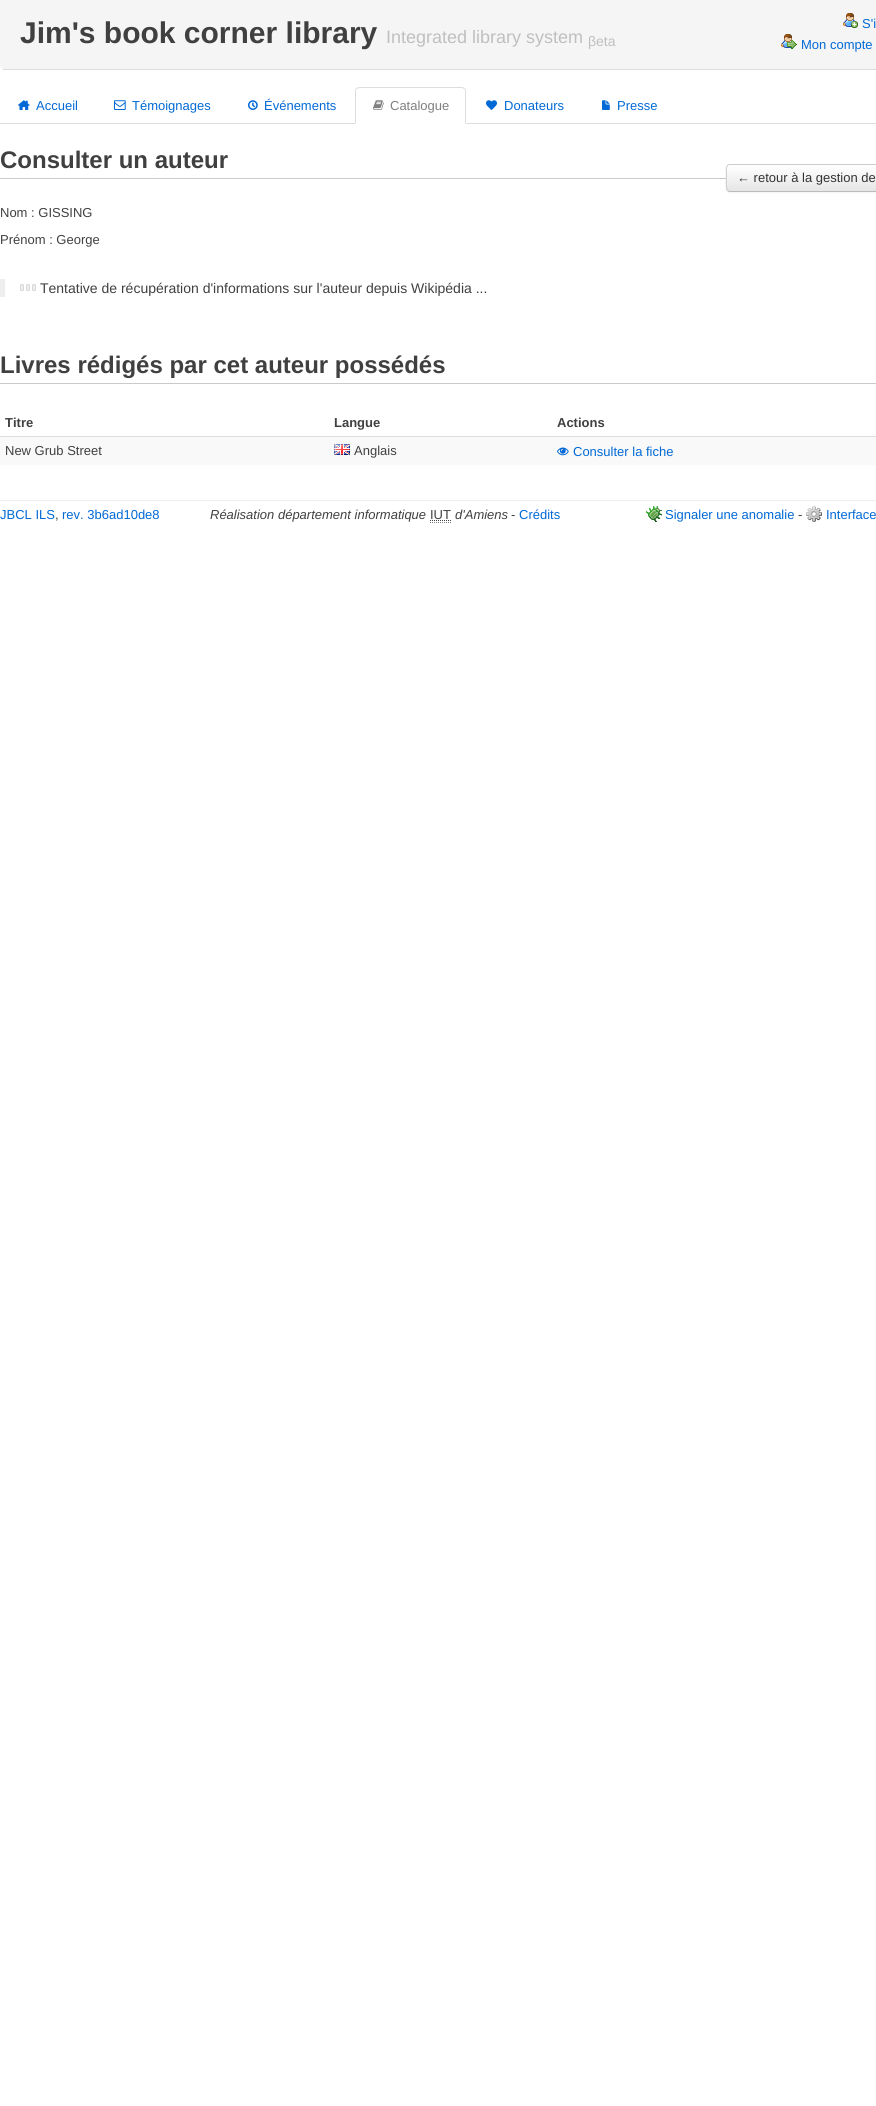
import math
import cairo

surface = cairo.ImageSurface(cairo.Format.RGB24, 876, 2106)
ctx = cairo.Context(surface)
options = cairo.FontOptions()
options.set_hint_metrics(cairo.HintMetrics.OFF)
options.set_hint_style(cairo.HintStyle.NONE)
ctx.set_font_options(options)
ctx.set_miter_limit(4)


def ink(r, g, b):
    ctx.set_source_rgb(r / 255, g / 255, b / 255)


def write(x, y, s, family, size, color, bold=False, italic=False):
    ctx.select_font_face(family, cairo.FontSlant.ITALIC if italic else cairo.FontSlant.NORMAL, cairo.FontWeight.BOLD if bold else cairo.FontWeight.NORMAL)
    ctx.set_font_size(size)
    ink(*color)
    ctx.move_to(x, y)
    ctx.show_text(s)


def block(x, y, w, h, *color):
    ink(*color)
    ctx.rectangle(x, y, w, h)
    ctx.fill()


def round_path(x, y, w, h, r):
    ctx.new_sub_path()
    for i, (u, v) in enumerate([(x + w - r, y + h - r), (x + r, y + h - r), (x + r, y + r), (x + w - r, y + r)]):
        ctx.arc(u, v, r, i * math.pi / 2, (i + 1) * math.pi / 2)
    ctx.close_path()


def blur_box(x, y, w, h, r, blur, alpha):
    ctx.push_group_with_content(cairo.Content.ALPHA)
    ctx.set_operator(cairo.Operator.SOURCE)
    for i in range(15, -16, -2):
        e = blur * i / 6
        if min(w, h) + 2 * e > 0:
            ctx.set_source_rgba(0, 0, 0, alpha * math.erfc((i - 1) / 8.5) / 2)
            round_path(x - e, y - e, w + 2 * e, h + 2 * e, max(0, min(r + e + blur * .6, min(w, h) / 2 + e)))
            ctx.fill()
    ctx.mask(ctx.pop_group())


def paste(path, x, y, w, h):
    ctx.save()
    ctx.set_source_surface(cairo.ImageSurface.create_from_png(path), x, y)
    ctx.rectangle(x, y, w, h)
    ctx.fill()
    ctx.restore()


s1 = dict(family="Liberation Sans", size=30, color=(64, 64, 64), bold=True)
s2 = dict(family="Liberation Sans", size=18, color=(191, 191, 191))
s3 = dict(family="Liberation Sans", size=14, color=(191, 191, 191))
s4 = dict(family="Liberation Sans", size=13, color=(0, 105, 214))
s5 = dict(family="Liberation Sans", size=13, color=(128, 128, 128))
s6 = dict(family="Liberation Sans", size=24, color=(64, 64, 64), bold=True)
s7 = dict(family="Liberation Sans", size=13, color=(51, 51, 51))
s8 = dict(family="Liberation Sans", size=13, color=(64, 64, 64))
s9 = dict(family="Liberation Sans", size=14, color=(64, 64, 64))
s10 = dict(family="Liberation Sans", size=13, color=(64, 64, 64), bold=True)
s11 = dict(family="Liberation Sans", size=13, color=(64, 64, 64), italic=True)

ink(255, 255, 255)
ctx.paint()
ink(245, 245, 245)
ctx.new_path()
ctx.move_to(0, 0)
ctx.line_to(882, 0)
ctx.line_to(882, 64)
ctx.curve_to(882, 67.5, 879.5, 70, 876, 70)
ctx.line_to(6, 70)
ctx.curve_to(2.5, 70, 0, 67.5, 0, 64)
ctx.close_path()
ctx.fill()
block(3, 69, 873, 1, 221, 221, 221)
write(20, 43, "Jim's book corner library", **s1)
write(386, 43, "Integrated library system", **s2)
write(588, 46, "βeta", **s3)
paste("pic1.png", 843, 13, 15, 15)
write(862, 28, "S'i", **s4)
paste("pic2.png", 781, 34, 16, 15)
write(801, 49, "Mon compte", **s4)
block(0, 123, 876, 1, 221, 221, 221)
paste("pic3.png", 18, 100, 12, 10)
write(36, 110, "Accueil", **s4)
paste("pic4.png", 114, 100, 12, 10)
write(132, 110, "Témoignages", **s4)
paste("pic5.png", 248, 100, 10, 10)
write(264, 110, "Événements", **s4)
ink(255, 255, 255)
ctx.new_path()
ctx.move_to(359, 87)
ctx.line_to(462, 87)
ctx.curve_to(464, 87, 466, 89, 466, 91)
ctx.line_to(466, 124)
ctx.line_to(355, 124)
ctx.line_to(355, 91)
ctx.curve_to(355, 89, 357, 87, 359, 87)
ctx.close_path()
ctx.fill()
ink(221, 221, 221)
ctx.new_path()
ctx.move_to(359, 87)
ctx.line_to(356, 88)
ctx.line_to(357, 89)
ctx.line_to(359, 88)
ctx.line_to(462, 88)
ctx.line_to(464, 89)
ctx.line_to(465, 88)
ctx.line_to(462, 87)
ctx.close_path()
ctx.fill()
ctx.new_path()
ctx.move_to(466, 124)
ctx.line_to(466, 91)
ctx.curve_to(466, 90, 465.5, 89, 465, 88)
ctx.line_to(464, 89)
ctx.curve_to(465, 89, 465, 90, 465, 91)
ctx.line_to(465, 123)
ctx.close_path()
ctx.fill()
ctx.new_path()
ctx.move_to(355, 124)
ctx.line_to(356, 123)
ctx.line_to(356, 91)
ctx.curve_to(356, 90, 356, 89, 357, 89)
ctx.line_to(356, 88)
ctx.curve_to(355.5, 89, 355, 90, 355, 91)
ctx.close_path()
ctx.fill()
paste("pic6.png", 373, 100, 11, 10)
write(390, 110, "Catalogue", **s5)
paste("pic7.png", 486, 100, 11, 10)
write(504, 110, "Donateurs", **s4)
paste("pic8.png", 602, 100, 8, 10)
write(617, 110, "Presse", **s4)
block(0, 178, 726, 1, 202, 202, 202)
write(0, 168, "Consulter un auteur", **s6)
ink(0, 0, 0)
blur_box(726, 165, 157, 28, 4, 1, 0.05)
ctx.save()
round_path(726, 164, 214, 28, 4)
ctx.clip()
gradient = cairo.LinearGradient(833, 165, 833, 191)
gradient.add_color_stop_rgba(0, 1, 1, 1, 1)
gradient.add_color_stop_rgba(1, 0.902, 0.902, 0.902, 1)
ctx.set_source(gradient)
ctx.rectangle(726, 165, 150, 26)
ctx.fill()
ctx.restore()
ctx.new_path()
ctx.move_to(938.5, 190.5)
ctx.curve_to(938, 191, 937, 191.5, 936, 191.5)
ctx.line_to(730, 191.5)
ctx.curve_to(729, 191.5, 728, 191, 727.5, 190.5)
ink(187, 187, 187)
ctx.set_line_width(1)
ctx.stroke()
ctx.new_path()
ctx.move_to(727.5, 190.5)
ctx.curve_to(725.5, 188, 726.5, 177.5, 726.5, 174.5)
ctx.curve_to(726.5, 172, 725, 164.5, 730, 164.5)
ctx.line_to(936, 164.5)
ctx.curve_to(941, 164.5, 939.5, 172, 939.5, 174.5)
ctx.curve_to(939.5, 177.5, 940.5, 188, 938.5, 190.5)
ink(204, 204, 204)
ctx.stroke()
write(737, 182, "← retour à la gestion de", **s7)
write(0, 217, "Nom : GISSING", **s8)
write(0, 244, "Prénom : George", **s8)
block(0, 279, 5, 18, 238, 238, 238)
paste("pic9.png", 20, 284, 16, 7)
write(40, 293, "Tentative de récupération d'informations sur l'auteur depuis Wikipédia ...", **s9)
block(0, 383, 876, 1, 202, 202, 202)
write(0, 373, "Livres rédigés par cet auteur possédés", **s6)
write(5, 427, "Titre", **s10)
write(334, 427, "Langue", **s10)
write(557, 427, "Actions", **s10)
block(0, 437, 876, 28, 249, 249, 249)
write(5, 455, "New Grub Street", **s8)
paste("pic10.png", 334, 444, 16, 11)
write(354, 455, "Anglais", **s8)
block(0, 436, 876, 1, 221, 221, 221)
paste("pic11.png", 557, 447, 12, 9)
write(573, 456, "Consulter la fiche", **s4)
block(0, 500, 876, 1, 238, 238, 238)
write(0, 519, "JBCL ILS", **s4)
write(62, 519, "rev. 3b6ad10de8", **s4)
write(210, 519, "Réalisation département informatique", **s11)
write(430, 519, "IUT", **s8)
ctx.new_path()
ctx.move_to(430, 522.5)
ctx.line_to(451, 522.5)
ink(128, 128, 128)
ctx.set_dash([1, 1])
ctx.stroke()
ctx.new_path()
ctx.move_to(430, 520.5)
ctx.line_to(451, 520.5)
ink(64, 64, 64)
ctx.stroke()
write(455, 519, "d'Amiens", **s11)
write(511, 519, "-", **s8)
write(519, 519, "Crédits", **s4)
paste("pic12.png", 646, 506, 16, 16)
write(665, 519, "Signaler une anomalie", **s4)
write(798, 519, "-", **s8)
paste("pic13.png", 806, 506, 16, 16)
write(826, 519, "Interface", **s4)
write(55, 519, ",", **s8)
surface.write_to_png("screenshot.png")
